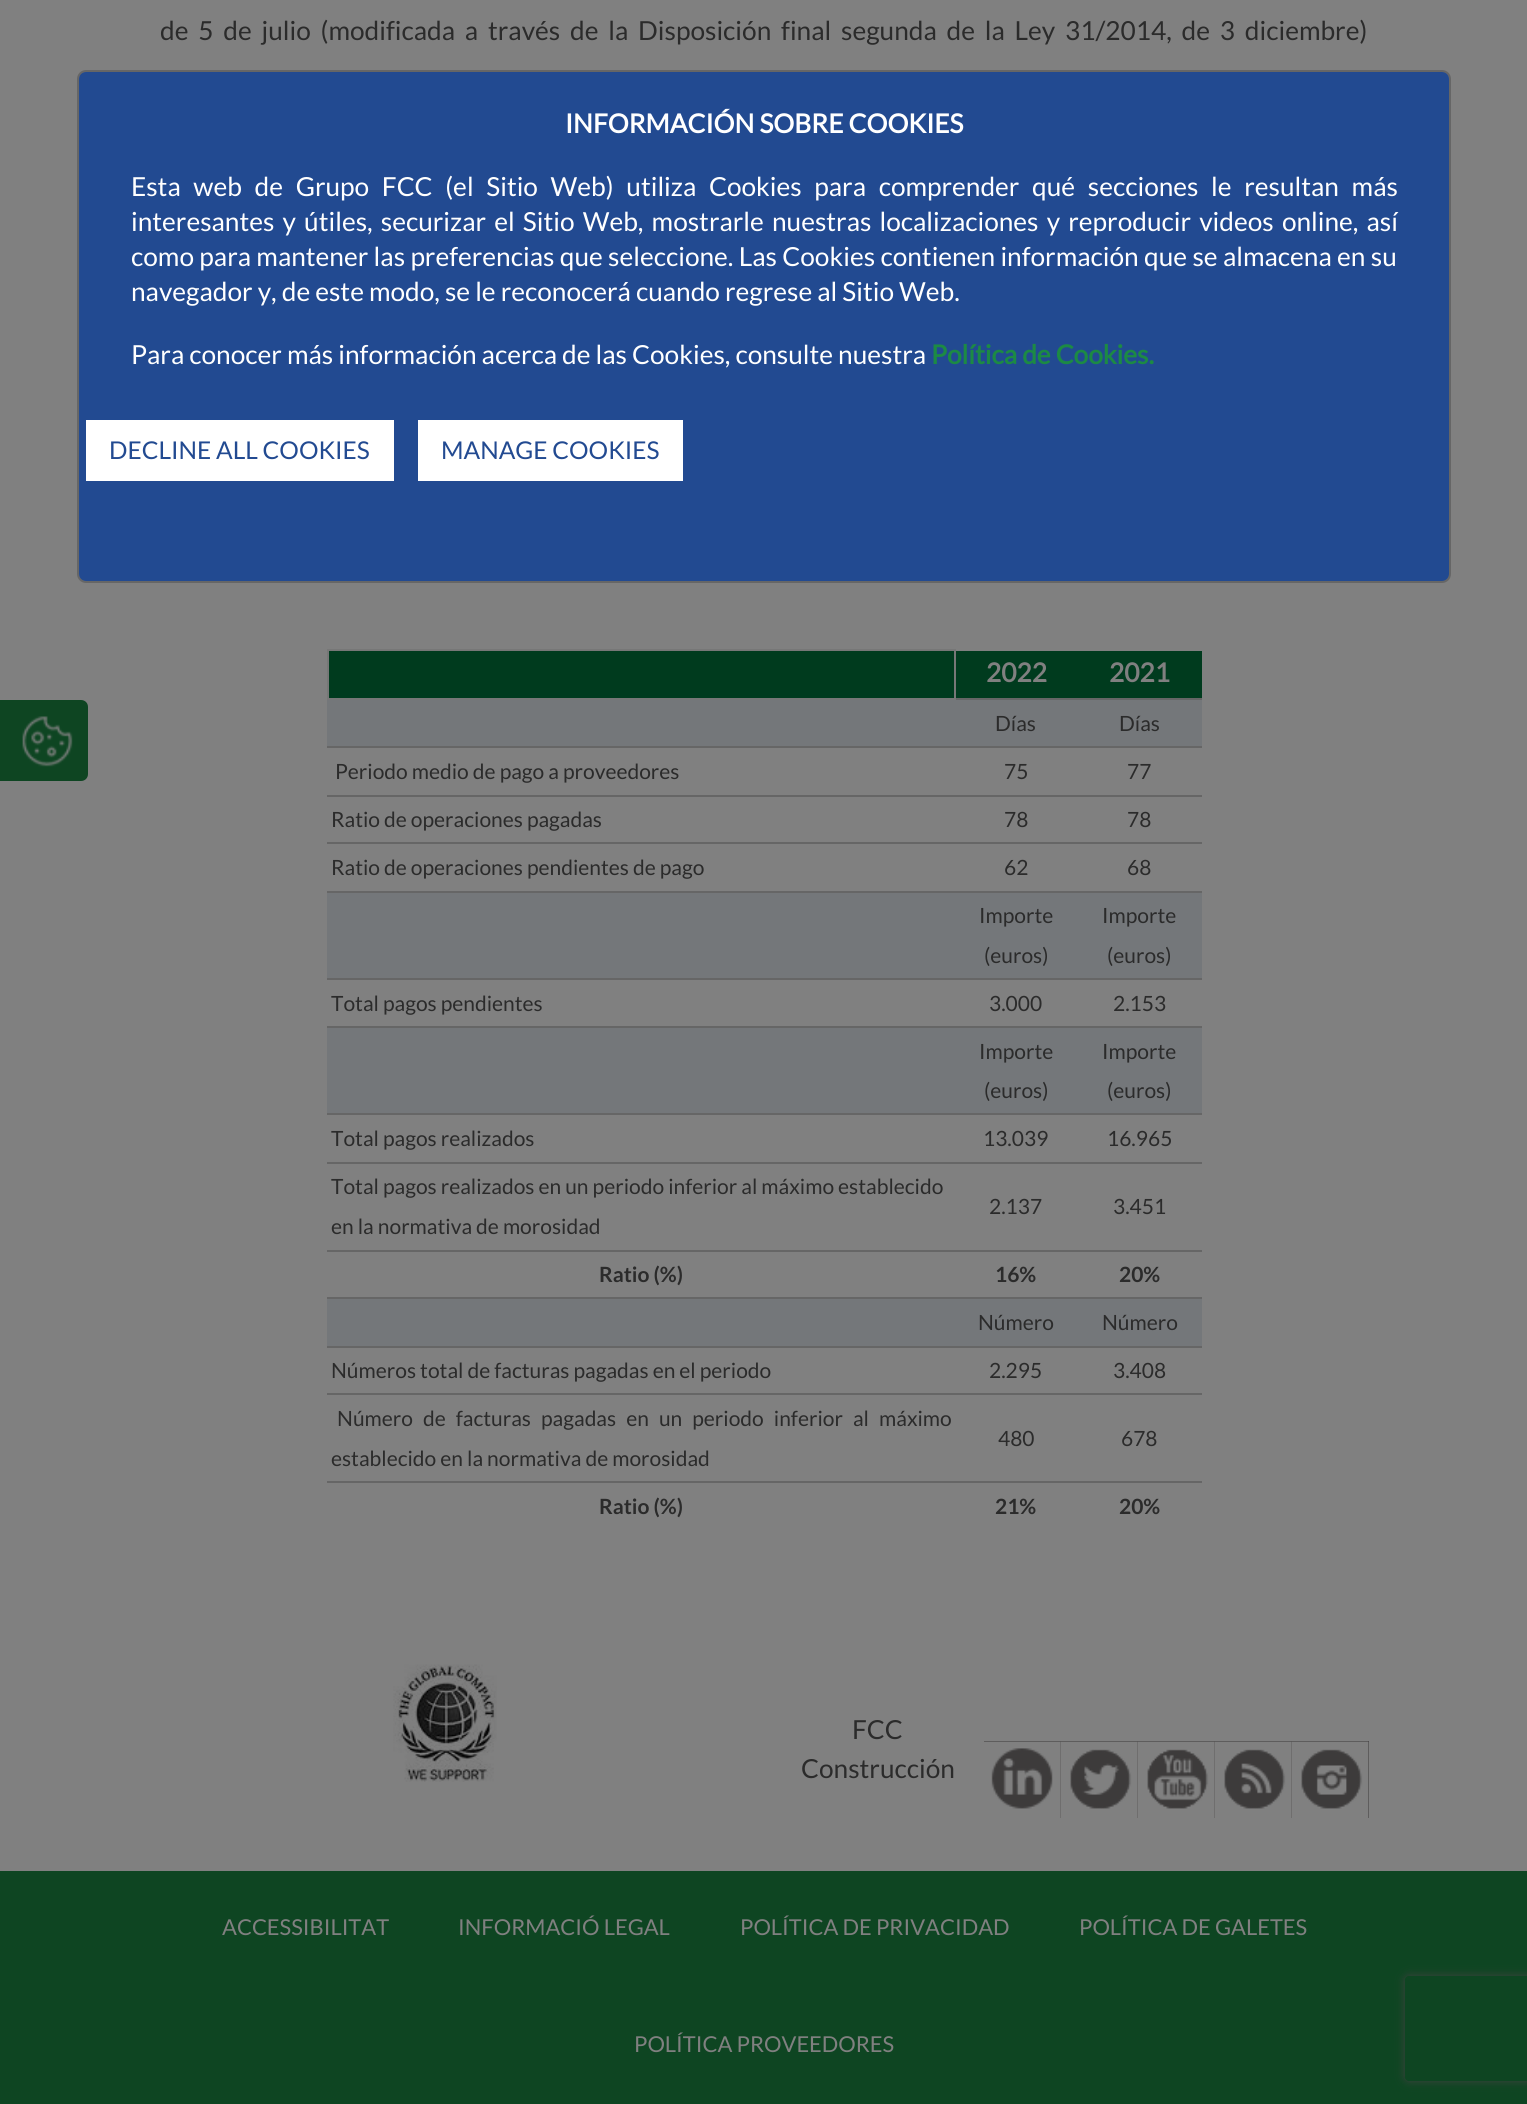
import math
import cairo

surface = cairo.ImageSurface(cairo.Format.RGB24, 1527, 2104)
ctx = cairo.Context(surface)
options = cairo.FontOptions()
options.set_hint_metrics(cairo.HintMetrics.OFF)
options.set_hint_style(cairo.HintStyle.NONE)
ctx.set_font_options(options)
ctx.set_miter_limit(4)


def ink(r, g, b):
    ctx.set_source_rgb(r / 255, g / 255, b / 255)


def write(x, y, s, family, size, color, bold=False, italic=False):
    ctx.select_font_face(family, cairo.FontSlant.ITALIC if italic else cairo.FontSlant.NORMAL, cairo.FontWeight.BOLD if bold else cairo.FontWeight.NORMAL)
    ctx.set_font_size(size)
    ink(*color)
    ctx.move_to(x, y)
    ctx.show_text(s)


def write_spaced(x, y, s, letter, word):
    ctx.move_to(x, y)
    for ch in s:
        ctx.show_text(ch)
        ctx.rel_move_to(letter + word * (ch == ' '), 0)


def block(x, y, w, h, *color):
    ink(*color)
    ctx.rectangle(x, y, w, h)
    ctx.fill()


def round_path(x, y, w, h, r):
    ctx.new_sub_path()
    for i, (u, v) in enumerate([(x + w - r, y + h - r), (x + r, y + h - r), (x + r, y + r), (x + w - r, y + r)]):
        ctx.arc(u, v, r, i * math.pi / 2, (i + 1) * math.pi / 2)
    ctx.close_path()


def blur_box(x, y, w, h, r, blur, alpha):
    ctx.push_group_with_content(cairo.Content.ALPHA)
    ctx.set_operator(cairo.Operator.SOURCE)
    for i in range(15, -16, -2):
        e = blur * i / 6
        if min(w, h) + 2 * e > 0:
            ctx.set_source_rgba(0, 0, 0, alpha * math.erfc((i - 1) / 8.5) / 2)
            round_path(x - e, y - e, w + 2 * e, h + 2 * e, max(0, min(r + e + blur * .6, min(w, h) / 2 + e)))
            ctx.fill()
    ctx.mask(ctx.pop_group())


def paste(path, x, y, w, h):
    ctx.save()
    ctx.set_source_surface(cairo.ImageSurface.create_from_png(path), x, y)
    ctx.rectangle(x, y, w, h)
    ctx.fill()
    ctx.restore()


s1 = dict(family="Lato", size=26.25, color=(128, 128, 128), bold=True)
s2 = dict(family="Lato", size=21, color=(43, 43, 43))
s3 = dict(family="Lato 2", size=21, color=(43, 43, 43), bold=True)
s4 = dict(family="Lato", size=26.25, color=(255, 255, 255), bold=True)
s5 = dict(family="Lato", size=26.25, color=(255, 255, 255))
s6 = dict(family="Lato", size=26.25, color=(28, 138, 68), bold=True)
s7 = dict(family="Lato", size=24.5, color=(34, 74, 145))
s8 = dict(family="Lato", size=26.25, color=(43, 43, 43))
s9 = dict(family="Lato", size=21.9, color=(128, 128, 128))

ink(128, 128, 128)
ctx.paint()
ctx.select_font_face("Lato")
ctx.set_font_size(26.25)
ink(43, 43, 43)
write_spaced(160, 40, "de 5 de julio (modificada a través de la Disposición final segunda de la Ley 31/2014, de 3 diciembre)", 0, 4.75)
block(329, 651, 873, 47, 0, 59, 30)
block(327, 649, 629, 2, 119, 119, 119)
block(954, 649, 2, 51, 119, 119, 119)
block(327, 698, 629, 2, 119, 119, 119)
block(327, 649, 2, 51, 119, 119, 119)
write(986, 682, "2022", **s1)
write(1109, 682, "2021", **s1)
block(327, 700, 875, 46, 116, 119, 122)
block(956, 698, 246, 2, 102, 102, 102)
write(995, 731, "Días", **s2)
write(1119, 731, "Días", **s2)
block(327, 746, 875, 2, 102, 102, 102)
write(335, 779, "Periodo medio de pago a proveedores", **s2)
write(1004, 779, "75", **s2)
write(1127, 779, "77", **s2)
block(327, 795, 875, 2, 102, 102, 102)
write(331, 827, "Ratio de operaciones pagadas", **s2)
write(1004, 827, "78", **s2)
write(1127, 827, "78", **s2)
block(327, 842, 875, 2, 102, 102, 102)
write(331, 875, "Ratio de operaciones pendientes de pago", **s2)
write(1004, 875, "62", **s2)
write(1127, 875, "68", **s2)
block(327, 893, 875, 85, 116, 119, 122)
block(327, 891, 875, 2, 102, 102, 102)
write(979, 923, "Importe", **s2)
write(984, 963, "(euros)", **s2)
write(1102, 923, "Importe", **s2)
write(1107, 963, "(euros)", **s2)
block(327, 978, 875, 2, 102, 102, 102)
write(331, 1011, "Total pagos pendientes", **s2)
write(989, 1011, "3.000", **s2)
write(1113, 1011, "2.153", **s2)
block(327, 1028, 875, 85, 116, 119, 122)
block(327, 1026, 875, 2, 102, 102, 102)
write(979, 1059, "Importe", **s2)
write(984, 1098, "(euros)", **s2)
write(1102, 1059, "Importe", **s2)
write(1107, 1098, "(euros)", **s2)
block(327, 1113, 875, 2, 102, 102, 102)
write(331, 1146, "Total pagos realizados", **s2)
write(983, 1146, "13.039", **s2)
write(1107, 1146, "16.965", **s2)
block(327, 1162, 875, 2, 102, 102, 102)
write(331, 1194, "Total pagos realizados en un periodo inferior al máximo establecido", **s2)
write(331, 1234, "en la normativa de morosidad", **s2)
write(989, 1214, "2.137", **s2)
write(1113, 1214, "3.451", **s2)
block(327, 1250, 875, 2, 102, 102, 102)
write(599, 1282, "Ratio (%)", **s3)
write(995, 1282, "16%", **s3)
write(1119, 1282, "20%", **s3)
block(327, 1299, 875, 47, 116, 119, 122)
block(327, 1297, 875, 2, 102, 102, 102)
write(978, 1330, "Número", **s2)
write(1102, 1330, "Número", **s2)
block(327, 1346, 875, 2, 102, 102, 102)
write(331, 1378, "Números total de facturas pagadas en el periodo", **s2)
write(989, 1378, "2.295", **s2)
write(1113, 1378, "3.408", **s2)
block(327, 1393, 875, 2, 102, 102, 102)
ink(43, 43, 43)
write_spaced(337, 1426, "Número de facturas pagadas en un periodo inferior al máximo", 0, 6)
write(331, 1466, "establecido en la normativa de morosidad", **s2)
write(998, 1446, "480", **s2)
write(1121, 1446, "678", **s2)
block(327, 1481, 875, 2, 102, 102, 102)
write(599, 1514, "Ratio (%)", **s3)
write(995, 1514, "21%", **s3)
write(1119, 1514, "20%", **s3)
ink(34, 74, 145)
round_path(79, 72, 1370, 509, 7)
ctx.fill()
round_path(78, 71, 1372, 511, 8)
ctx.set_source_rgba(0, 0, 0, 0.2)
ctx.stroke()
write(565, 133, "INFORMACIÓN SOBRE COOKIES", **s4)
ctx.select_font_face("Lato")
write_spaced(131, 196, "Esta web de Grupo FCC (el Sitio Web) utiliza Cookies para comprender qué secciones le resultan más", 0, 7.6)
write_spaced(131, 231, "interesantes y útiles, securizar el Sitio Web, mostrarle nuestras localizaciones y reproducir videos online, así", 0, 3.1)
write_spaced(131, 266, "como para mantener las preferencias que seleccione. Las Cookies contienen información que se almacena en su", 0, 0.3)
write(131, 301, "navegador y, de este modo, se le reconocerá cuando regrese al Sitio Web.", **s5)
write(131, 364, "Para conocer más información acerca de las Cookies, consulte nuestra", **s5)
write(931, 364, "Política de Cookies.", **s6)
ink(255, 255, 255)
ctx.rectangle(87, 421, 306, 59)
ctx.fill_preserve()
ctx.stroke()
write(109, 459, "DECLINE ALL COOKIES", **s7)
ink(255, 255, 255)
ctx.rectangle(419, 421, 263, 59)
ctx.fill_preserve()
ctx.stroke()
write(441, 459, "MANAGE COOKIES", **s7)
ink(14, 69, 34)
ctx.new_path()
ctx.move_to(0, 700)
ctx.line_to(81, 700)
ctx.curve_to(85, 700, 88, 703, 88, 707)
ctx.line_to(88, 774)
ctx.curve_to(88, 778, 85, 781, 81, 781)
ctx.line_to(0, 781)
ctx.close_path()
ctx.fill()
paste("pic1.png", 22, 716, 51, 51)
paste("pic2.png", 393, 1664, 104, 118)
write(852, 1739, "FCC", **s8)
write(801, 1778, "Construcción", **s8)
block(984, 1741, 385, 77, 61, 59, 59)
paste("pic3.png", 984, 1741, 77, 77)
paste("pic4.png", 1060, 1741, 78, 77)
paste("pic5.png", 1137, 1741, 78, 77)
paste("pic6.png", 1214, 1741, 78, 77)
paste("pic7.png", 1291, 1741, 78, 77)
block(0, 1871, 1527, 233, 14, 69, 34)
write(222, 1935, "ACCESSIBILITAT", **s9)
write(458, 1935, "INFORMACIÓ LEGAL", **s9)
write(740, 1935, "POLÍTICA DE PRIVACIDAD", **s9)
write(1079, 1935, "POLÍTICA DE GALETES", **s9)
write(634, 2052, "POLÍTICA PROVEEDORES", **s9)
ctx.save()
ctx.set_fill_rule(cairo.FillRule.EVEN_ODD)
ctx.new_path()
ctx.move_to(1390, 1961)
ctx.line_to(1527, 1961)
ctx.line_to(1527, 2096)
ctx.line_to(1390, 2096)
ctx.close_path()
ctx.move_to(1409, 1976)
ctx.line_to(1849, 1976)
ctx.curve_to(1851, 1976, 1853, 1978, 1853, 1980)
ctx.line_to(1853, 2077)
ctx.curve_to(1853, 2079, 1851, 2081, 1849, 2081)
ctx.line_to(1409, 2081)
ctx.curve_to(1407, 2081, 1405, 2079, 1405, 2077)
ctx.line_to(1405, 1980)
ctx.curve_to(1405, 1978, 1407, 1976, 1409, 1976)
ctx.close_path()
ctx.clip()
ink(64, 64, 64)
blur_box(1405, 1976, 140, 105, 4, 4.5, 1)
ctx.restore()
surface.write_to_png("screenshot.png")
